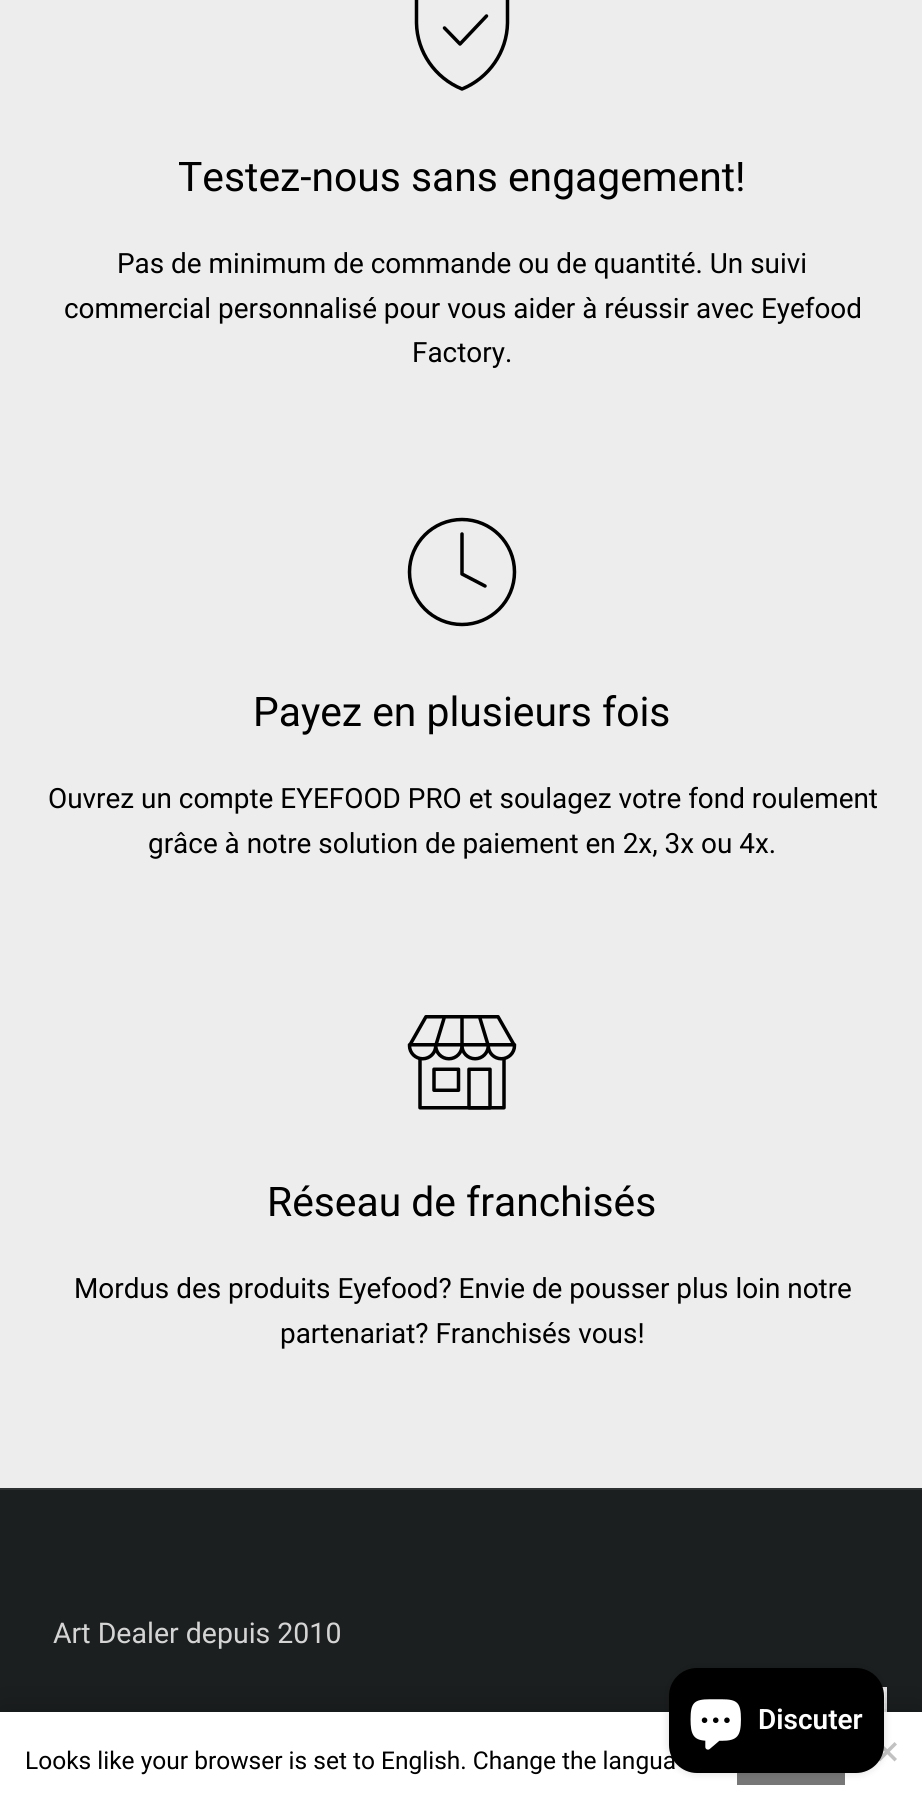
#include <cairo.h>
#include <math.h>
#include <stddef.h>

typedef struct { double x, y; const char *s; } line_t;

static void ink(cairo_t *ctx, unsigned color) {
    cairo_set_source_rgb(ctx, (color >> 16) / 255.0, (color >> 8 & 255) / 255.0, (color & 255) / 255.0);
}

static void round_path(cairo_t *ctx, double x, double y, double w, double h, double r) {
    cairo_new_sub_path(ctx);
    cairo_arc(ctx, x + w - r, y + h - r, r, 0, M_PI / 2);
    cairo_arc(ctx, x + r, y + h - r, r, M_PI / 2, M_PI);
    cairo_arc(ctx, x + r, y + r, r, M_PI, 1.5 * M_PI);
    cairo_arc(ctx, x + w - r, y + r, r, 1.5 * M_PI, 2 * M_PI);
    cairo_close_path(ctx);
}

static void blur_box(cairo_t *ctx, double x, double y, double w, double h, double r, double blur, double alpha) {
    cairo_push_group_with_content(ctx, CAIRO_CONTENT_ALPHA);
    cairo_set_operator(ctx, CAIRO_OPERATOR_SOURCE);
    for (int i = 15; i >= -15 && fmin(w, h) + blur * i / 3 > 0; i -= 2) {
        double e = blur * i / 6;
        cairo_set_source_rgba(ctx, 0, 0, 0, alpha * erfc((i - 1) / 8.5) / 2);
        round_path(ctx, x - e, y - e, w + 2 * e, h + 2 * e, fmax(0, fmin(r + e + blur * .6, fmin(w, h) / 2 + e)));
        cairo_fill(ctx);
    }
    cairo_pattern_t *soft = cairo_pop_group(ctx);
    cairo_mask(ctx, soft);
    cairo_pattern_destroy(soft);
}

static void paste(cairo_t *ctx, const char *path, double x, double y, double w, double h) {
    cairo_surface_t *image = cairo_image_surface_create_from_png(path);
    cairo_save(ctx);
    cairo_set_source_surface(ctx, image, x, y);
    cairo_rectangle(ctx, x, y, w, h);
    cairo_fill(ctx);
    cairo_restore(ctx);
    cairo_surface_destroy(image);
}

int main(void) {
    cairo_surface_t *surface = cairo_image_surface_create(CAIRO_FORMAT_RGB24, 922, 1808);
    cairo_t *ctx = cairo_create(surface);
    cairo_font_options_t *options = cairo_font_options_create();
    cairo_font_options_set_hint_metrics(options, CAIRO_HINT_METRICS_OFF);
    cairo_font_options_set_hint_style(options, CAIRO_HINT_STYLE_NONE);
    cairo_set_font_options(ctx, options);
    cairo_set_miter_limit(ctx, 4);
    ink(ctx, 0xEDEDED);
    cairo_paint(ctx);
    cairo_new_path(ctx);
    cairo_move_to(ctx, 416.5, -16);
    cairo_line_to(ctx, 507.5, -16);
    cairo_line_to(ctx, 507.5, 23);
    cairo_curve_to(ctx, 507, 52, 489, 78, 462, 89);
    cairo_curve_to(ctx, 435, 78, 417, 52, 416.5, 23);
    cairo_close_path(ctx);
    ink(ctx, 0x000000);
    cairo_set_line_width(ctx, 3.5);
    cairo_set_line_cap(ctx, CAIRO_LINE_CAP_ROUND);
    cairo_set_line_join(ctx, CAIRO_LINE_JOIN_ROUND);
    cairo_stroke(ctx);
    cairo_new_path(ctx);
    cairo_move_to(ctx, 444.5, 28);
    cairo_line_to(ctx, 460, 44);
    cairo_line_to(ctx, 486.5, 16);
    cairo_stroke(ctx);
    cairo_select_font_face(ctx, "Roboto", CAIRO_FONT_SLANT_NORMAL, CAIRO_FONT_WEIGHT_NORMAL);
    cairo_set_font_size(ctx, 40.8);
    cairo_move_to(ctx, 178, 191);
    cairo_show_text(ctx, "Testez-nous sans engagement!");
    cairo_set_font_size(ctx, 27.9);
    {
        static const line_t items[] = {
            {117, 273, "Pas de minimum de commande ou de quantité. Un suivi"},
            {64, 318, "commercial personnalisé pour vous aider à réussir avec Eyefood"},
            {412, 362, "Factory."},
        };
        for (size_t i = 0; i < sizeof items / sizeof *items; i++) {
            cairo_move_to(ctx, items[i].x, items[i].y);
            cairo_show_text(ctx, items[i].s);
        }
    }
    cairo_new_path(ctx);
    cairo_arc(ctx, 462, 572, 52.5, 0, 2 * M_PI);
    cairo_set_line_cap(ctx, CAIRO_LINE_CAP_BUTT);
    cairo_set_line_join(ctx, CAIRO_LINE_JOIN_MITER);
    cairo_stroke(ctx);
    cairo_new_path(ctx);
    cairo_move_to(ctx, 462, 534);
    cairo_line_to(ctx, 462, 574);
    cairo_line_to(ctx, 485, 586);
    cairo_set_line_cap(ctx, CAIRO_LINE_CAP_ROUND);
    cairo_set_line_join(ctx, CAIRO_LINE_JOIN_ROUND);
    cairo_stroke(ctx);
    cairo_set_font_size(ctx, 40.8);
    cairo_move_to(ctx, 253, 726);
    cairo_show_text(ctx, "Payez en plusieurs fois");
    cairo_set_font_size(ctx, 27.9);
    cairo_move_to(ctx, 48, 808);
    cairo_show_text(ctx, "Ouvrez un compte EYEFOOD PRO et soulagez votre fond roulement");
    cairo_move_to(ctx, 148, 853);
    cairo_show_text(ctx, "grâce à notre solution de paiement en 2x, 3x ou 4x.");
    paste(ctx, "media/1.png", 407, 1015, 110, 95);
    cairo_set_font_size(ctx, 40.8);
    cairo_move_to(ctx, 267, 1216);
    cairo_show_text(ctx, "Réseau de franchisés");
    cairo_set_font_size(ctx, 27.9);
    cairo_move_to(ctx, 74, 1298);
    cairo_show_text(ctx, "Mordus des produits Eyefood? Envie de pousser plus loin notre");
    cairo_move_to(ctx, 280, 1343);
    cairo_show_text(ctx, "partenariat? Franchisés vous!");
    ink(ctx, 0x1C1F20);
    cairo_rectangle(ctx, 0, 1490, 922, 222);
    cairo_fill(ctx);
    ink(ctx, 0x2E3132);
    cairo_rectangle(ctx, 0, 1488, 922, 2);
    cairo_fill(ctx);
    cairo_set_font_size(ctx, 28.5);
    ink(ctx, 0xD4D4D4);
    cairo_move_to(ctx, 53, 1643);
    cairo_show_text(ctx, "Art Dealer depuis 2010");
    ink(ctx, 0xFFFFFF);
    cairo_rectangle(ctx, 883, 1689, 2, 23);
    cairo_fill(ctx);
    cairo_rectangle(ctx, 801, 1688, 85, 86);
    ink(ctx, 0xEBEBEB);
    cairo_set_line_width(ctx, 2);
    cairo_set_line_cap(ctx, CAIRO_LINE_CAP_BUTT);
    cairo_set_line_join(ctx, CAIRO_LINE_JOIN_MITER);
    cairo_stroke(ctx);
    ink(ctx, 0x000000);
    blur_box(ctx, 0, 1712, 922, 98, 0, 17.5, 0.25);
    ink(ctx, 0xFFFFFF);
    cairo_rectangle(ctx, 0, 1712, 922, 96);
    cairo_fill(ctx);
    ink(ctx, 0xC2C2C2);
    cairo_new_path(ctx);
    cairo_move_to(ctx, 894.5, 1742);
    cairo_line_to(ctx, 897, 1744.5);
    cairo_line_to(ctx, 880, 1761.5);
    cairo_line_to(ctx, 877.5, 1759);
    cairo_close_path(ctx);
    cairo_fill(ctx);
    cairo_new_path(ctx);
    cairo_move_to(ctx, 877.5, 1744.5);
    cairo_line_to(ctx, 880, 1742);
    cairo_line_to(ctx, 897, 1759);
    cairo_line_to(ctx, 894.5, 1761.5);
    cairo_close_path(ctx);
    cairo_fill(ctx);
    ink(ctx, 0x787777);
    cairo_rectangle(ctx, 737, 1773, 108, 12);
    cairo_fill(ctx);
    ink(ctx, 0x000000);
    blur_box(ctx, 669, 1668, 215, 105, 28, 4.5, 0.15);
    ink(ctx, 0x000000);
    round_path(ctx, 669, 1668, 215, 105, 28);
    cairo_fill(ctx);
    paste(ctx, "media/2.png", 690, 1699, 51, 51);
    cairo_select_font_face(ctx, "Roboto SemiBold", CAIRO_FONT_SLANT_NORMAL, CAIRO_FONT_WEIGHT_NORMAL);
    cairo_set_font_size(ctx, 28);
    ink(ctx, 0xFFFFFF);
    cairo_move_to(ctx, 758, 1729);
    cairo_show_text(ctx, "Discuter");
    cairo_select_font_face(ctx, "Roboto", CAIRO_FONT_SLANT_NORMAL, CAIRO_FONT_WEIGHT_NORMAL);
    cairo_set_font_size(ctx, 24.5);
    ink(ctx, 0x000000);
    cairo_move_to(ctx, 25, 1769);
    cairo_show_text(ctx, "Looks like your browser is set to English. Change the langua");
    cairo_surface_write_to_png(surface, "image.png");
    cairo_font_options_destroy(options);
    cairo_destroy(ctx);
    cairo_surface_destroy(surface);
    return 0;
}
